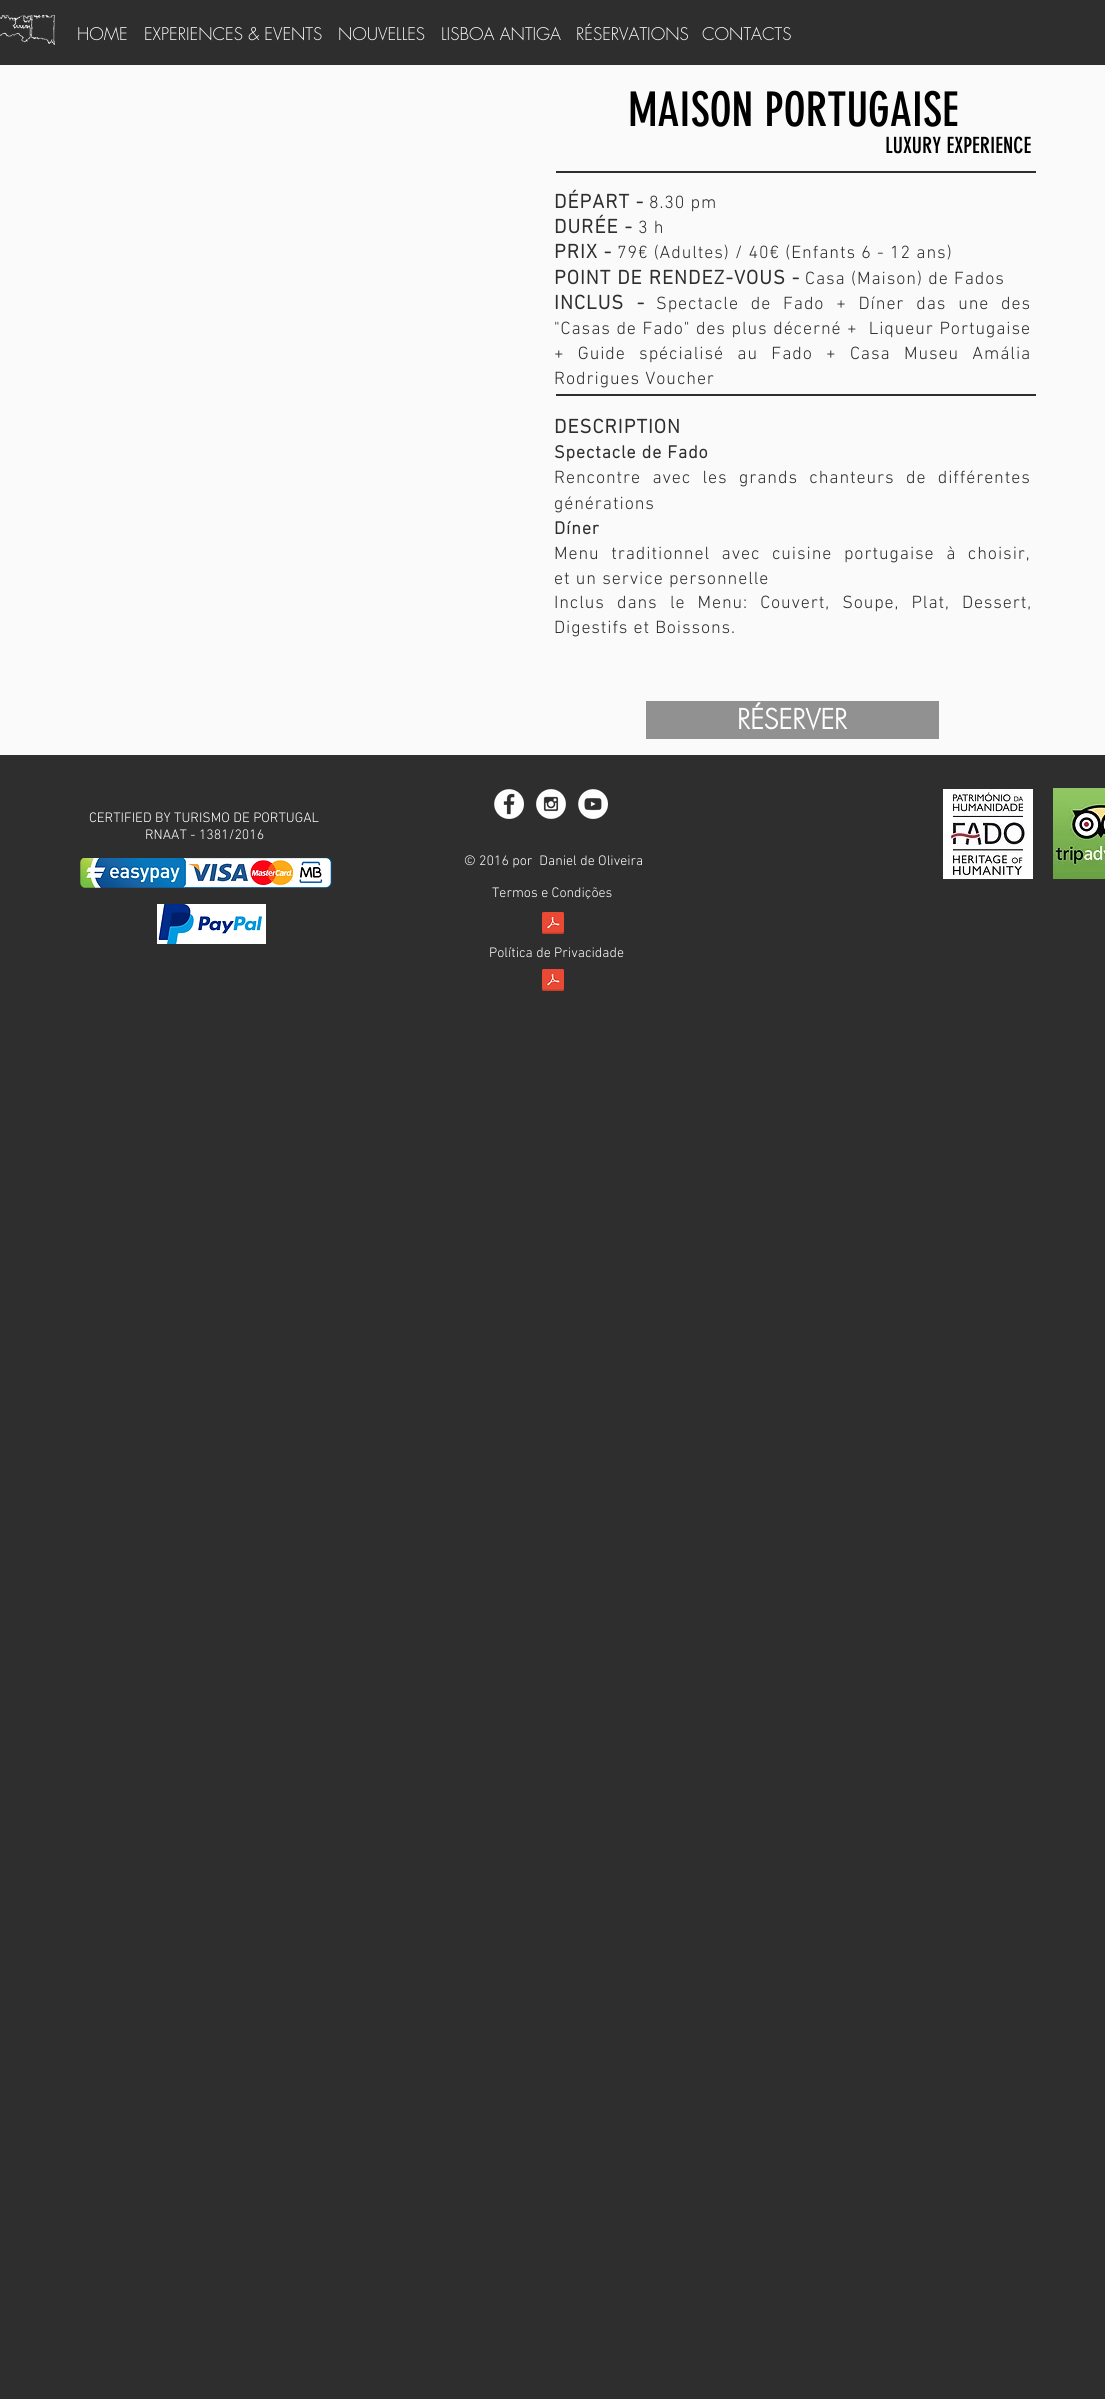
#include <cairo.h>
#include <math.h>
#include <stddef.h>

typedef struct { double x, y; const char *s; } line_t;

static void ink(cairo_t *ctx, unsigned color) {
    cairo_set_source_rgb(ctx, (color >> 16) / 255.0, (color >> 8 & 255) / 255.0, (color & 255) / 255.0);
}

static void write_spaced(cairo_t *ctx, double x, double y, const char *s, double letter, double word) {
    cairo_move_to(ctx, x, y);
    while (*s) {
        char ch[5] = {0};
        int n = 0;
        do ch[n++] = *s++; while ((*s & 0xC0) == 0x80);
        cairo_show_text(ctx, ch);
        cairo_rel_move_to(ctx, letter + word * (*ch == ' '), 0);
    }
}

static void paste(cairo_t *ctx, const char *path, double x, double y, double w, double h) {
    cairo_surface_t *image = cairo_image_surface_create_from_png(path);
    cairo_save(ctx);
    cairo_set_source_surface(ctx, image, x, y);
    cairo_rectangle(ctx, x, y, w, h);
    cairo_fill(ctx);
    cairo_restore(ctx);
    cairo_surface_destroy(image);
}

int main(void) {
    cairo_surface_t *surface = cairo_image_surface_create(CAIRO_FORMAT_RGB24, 1105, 2399);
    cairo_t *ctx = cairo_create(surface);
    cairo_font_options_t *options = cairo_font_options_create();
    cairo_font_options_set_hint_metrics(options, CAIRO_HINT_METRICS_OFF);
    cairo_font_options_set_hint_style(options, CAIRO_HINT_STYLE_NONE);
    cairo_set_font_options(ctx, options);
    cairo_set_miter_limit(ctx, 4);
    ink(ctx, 0x2F2E2E);
    cairo_paint(ctx);
    paste(ctx, "media/1.png", 0, 15, 55, 30);
    cairo_select_font_face(ctx, "futura Light", CAIRO_FONT_SLANT_NORMAL, CAIRO_FONT_WEIGHT_NORMAL);
    cairo_set_font_size(ctx, 17);
    ink(ctx, 0xFFFFFF);
    {
        static const line_t items[] = {
            {77, 40, "HOME"},
            {144, 40, "EXPERIENCES & EVENTS"},
            {338, 40, "NOUVELLES"},
            {441, 40, "LISBOA ANTIGA"},
            {576, 40, "RÉSERVATIONS"},
            {702, 40, "CONTACTS"},
        };
        for (size_t i = 0; i < sizeof items / sizeof *items; i++) {
            cairo_move_to(ctx, items[i].x, items[i].y);
            cairo_show_text(ctx, items[i].s);
        }
    }
    ink(ctx, 0xFAFAFA);
    cairo_rectangle(ctx, 0, 65, 1105, 690);
    cairo_fill(ctx);
    cairo_select_font_face(ctx, "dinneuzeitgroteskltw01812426", CAIRO_FONT_SLANT_NORMAL, CAIRO_FONT_WEIGHT_NORMAL);
    cairo_set_font_size(ctx, 47);
    ink(ctx, 0x000000);
    cairo_move_to(ctx, 628, 126);
    cairo_show_text(ctx, "MAISON PORTUGAISE");
    cairo_set_font_size(ctx, 22);
    cairo_move_to(ctx, 885, 153);
    cairo_show_text(ctx, "LUXURY EXPERIENCE");
    ink(ctx, 0x2F2E2E);
    cairo_rectangle(ctx, 556, 171, 480, 2);
    cairo_fill(ctx);
    cairo_select_font_face(ctx, "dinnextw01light", CAIRO_FONT_SLANT_NORMAL, CAIRO_FONT_WEIGHT_BOLD);
    cairo_set_font_size(ctx, 20);
    write_spaced(ctx, 554, 208, "DÉPART -", 1, 0);
    cairo_select_font_face(ctx, "dinnextw01light Light", CAIRO_FONT_SLANT_NORMAL, CAIRO_FONT_WEIGHT_NORMAL);
    cairo_set_font_size(ctx, 18);
    write_spaced(ctx, 649, 208, "8.30 pm", 0.9, 0);
    cairo_select_font_face(ctx, "dinnextw01light", CAIRO_FONT_SLANT_NORMAL, CAIRO_FONT_WEIGHT_BOLD);
    cairo_set_font_size(ctx, 20);
    write_spaced(ctx, 554, 233, "DURÉE -", 1, 0);
    cairo_select_font_face(ctx, "dinnextw01light Light", CAIRO_FONT_SLANT_NORMAL, CAIRO_FONT_WEIGHT_NORMAL);
    cairo_set_font_size(ctx, 18);
    write_spaced(ctx, 638, 233, "3 h", 0.9, 0);
    cairo_select_font_face(ctx, "dinnextw01light", CAIRO_FONT_SLANT_NORMAL, CAIRO_FONT_WEIGHT_BOLD);
    cairo_set_font_size(ctx, 20);
    write_spaced(ctx, 554, 258, "PRIX -", 1, 0);
    cairo_select_font_face(ctx, "dinnextw01light Light", CAIRO_FONT_SLANT_NORMAL, CAIRO_FONT_WEIGHT_NORMAL);
    cairo_set_font_size(ctx, 18);
    write_spaced(ctx, 617, 258, "79€ (Adultes) / 40€ (Enfants 6 - 12 ans)", 0.9, 0);
    cairo_select_font_face(ctx, "dinnextw01light", CAIRO_FONT_SLANT_NORMAL, CAIRO_FONT_WEIGHT_BOLD);
    cairo_set_font_size(ctx, 20);
    write_spaced(ctx, 554, 284, "POINT DE RENDEZ-VOUS -", 1, 0);
    cairo_select_font_face(ctx, "dinnextw01light Light", CAIRO_FONT_SLANT_NORMAL, CAIRO_FONT_WEIGHT_NORMAL);
    cairo_set_font_size(ctx, 18);
    write_spaced(ctx, 805, 284, "Casa (Maison) de Fados", 0.9, 0);
    cairo_select_font_face(ctx, "dinnextw01light", CAIRO_FONT_SLANT_NORMAL, CAIRO_FONT_WEIGHT_BOLD);
    cairo_set_font_size(ctx, 20);
    write_spaced(ctx, 554, 309, "INCLUS -", 1, 6.5);
    cairo_select_font_face(ctx, "dinnextw01light Light", CAIRO_FONT_SLANT_NORMAL, CAIRO_FONT_WEIGHT_NORMAL);
    cairo_set_font_size(ctx, 18);
    write_spaced(ctx, 656, 309, "Spectacle de Fado + Díner das une des", 0.9, 6.5);
    write_spaced(ctx, 554, 334, "\"Casas de Fado\" des plus décerné +  Liqueur Portugaise", 0.9, 0.25);
    write_spaced(ctx, 554, 359, "+ Guide spécialisé au Fado + Casa Museu Amália", 0.9, 8);
    write_spaced(ctx, 554, 384, "Rodrigues Voucher", 0.9, 0);
    cairo_rectangle(ctx, 556, 394, 480, 2);
    cairo_fill(ctx);
    cairo_select_font_face(ctx, "dinnextw01light", CAIRO_FONT_SLANT_NORMAL, CAIRO_FONT_WEIGHT_BOLD);
    cairo_set_font_size(ctx, 20);
    write_spaced(ctx, 554, 433, "DESCRIPTION", 1, 0);
    cairo_set_font_size(ctx, 18);
    write_spaced(ctx, 554, 458, "Spectacle de Fado", 0.85, 0);
    cairo_select_font_face(ctx, "dinnextw01light Light", CAIRO_FONT_SLANT_NORMAL, CAIRO_FONT_WEIGHT_NORMAL);
    write_spaced(ctx, 554, 483, "Rencontre avec les grands chanteurs de différentes", 0.9, 6);
    write_spaced(ctx, 554, 509, "générations", 0.9, 0);
    cairo_select_font_face(ctx, "dinnextw01light", CAIRO_FONT_SLANT_NORMAL, CAIRO_FONT_WEIGHT_BOLD);
    write_spaced(ctx, 554, 534, "Díner", 0.9, 0);
    cairo_select_font_face(ctx, "dinnextw01light Light", CAIRO_FONT_SLANT_NORMAL, CAIRO_FONT_WEIGHT_NORMAL);
    write_spaced(ctx, 554, 559, "Menu traditionnel avec cuisine portugaise à choisir,", 0.9, 6.25);
    write_spaced(ctx, 554, 584, "et un service personnelle", 0.9, 0);
    write_spaced(ctx, 554, 608, "Inclus dans le Menu: Couvert, Soupe, Plat, Dessert,", 0.85, 7);
    write_spaced(ctx, 554, 633, "Digestifs et Boissons.", 0.85, 0);
    ink(ctx, 0x919191);
    cairo_rectangle(ctx, 646, 701, 293, 38);
    cairo_fill(ctx);
    cairo_select_font_face(ctx, "futura", CAIRO_FONT_SLANT_NORMAL, CAIRO_FONT_WEIGHT_BOLD);
    cairo_set_font_size(ctx, 27);
    ink(ctx, 0xFFFFFF);
    cairo_move_to(ctx, 737, 729);
    cairo_show_text(ctx, "RÉSERVER");
    cairo_select_font_face(ctx, "dinnextw01light Light", CAIRO_FONT_SLANT_NORMAL, CAIRO_FONT_WEIGHT_NORMAL);
    cairo_set_font_size(ctx, 14);
    cairo_move_to(ctx, 89, 822);
    cairo_show_text(ctx, "CERTIFIED BY TURISMO DE PORTUGAL");
    cairo_move_to(ctx, 145, 839);
    cairo_show_text(ctx, "RNAAT - 1381/2016");
    paste(ctx, "media/2.png", 494, 789, 30, 30);
    paste(ctx, "media/3.png", 536, 789, 30, 30);
    paste(ctx, "media/4.png", 578, 789, 30, 30);
    paste(ctx, "media/5.png", 943, 789, 90, 90);
    paste(ctx, "media/6.png", 1053, 788, 52, 91);
    paste(ctx, "media/7.png", 80, 858, 252, 30);
    cairo_move_to(ctx, 464, 865);
    cairo_show_text(ctx, "© 2016 por  Daniel de Oliveira");
    cairo_move_to(ctx, 492, 897);
    cairo_show_text(ctx, "Termos e Condições");
    paste(ctx, "media/8.png", 157, 904, 109, 40);
    paste(ctx, "media/9.png", 542, 912, 22, 22);
    cairo_move_to(ctx, 489, 957);
    cairo_show_text(ctx, "Política de Privacidade");
    paste(ctx, "media/9.png", 542, 969, 22, 22);
    cairo_surface_write_to_png(surface, "image.png");
    cairo_font_options_destroy(options);
    cairo_destroy(ctx);
    cairo_surface_destroy(surface);
    return 0;
}
